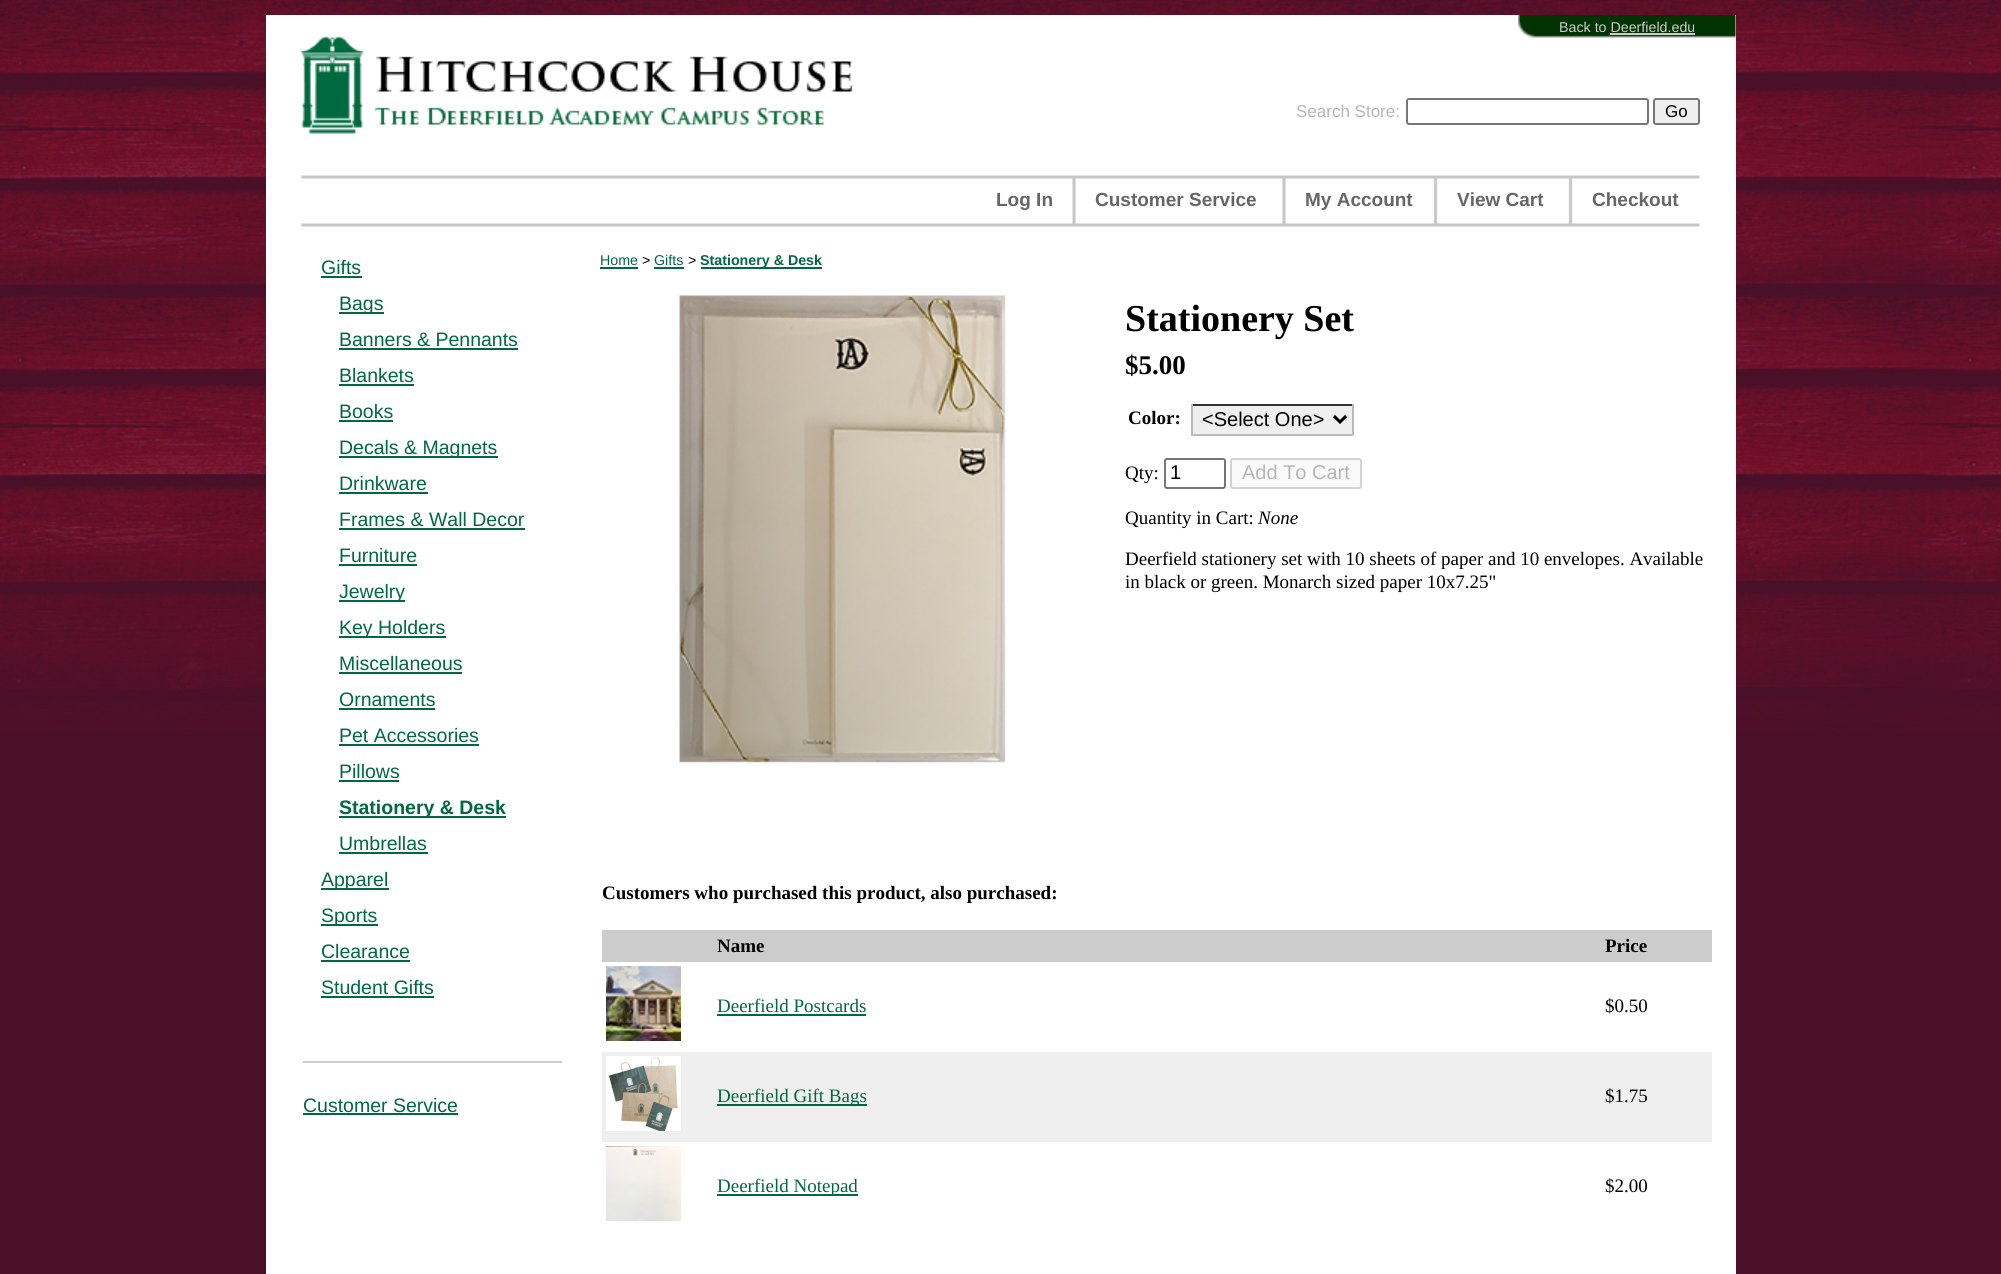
#include <cairo.h>
#include <math.h>
#include <stddef.h>

typedef struct { double x, y; const char *s; } line_t;
typedef struct { double x, y, w, h; unsigned color; } box_t;

static void ink(cairo_t *ctx, unsigned color) {
    cairo_set_source_rgb(ctx, (color >> 16) / 255.0, (color >> 8 & 255) / 255.0, (color & 255) / 255.0);
}

static void round_path(cairo_t *ctx, double x, double y, double w, double h, double r) {
    cairo_new_sub_path(ctx);
    cairo_arc(ctx, x + w - r, y + h - r, r, 0, M_PI / 2);
    cairo_arc(ctx, x + r, y + h - r, r, M_PI / 2, M_PI);
    cairo_arc(ctx, x + r, y + r, r, M_PI, 1.5 * M_PI);
    cairo_arc(ctx, x + w - r, y + r, r, 1.5 * M_PI, 2 * M_PI);
    cairo_close_path(ctx);
}

static void paste(cairo_t *ctx, const char *path, double x, double y, double w, double h) {
    cairo_surface_t *image = cairo_image_surface_create_from_png(path);
    cairo_save(ctx);
    cairo_set_source_surface(ctx, image, x, y);
    cairo_rectangle(ctx, x, y, w, h);
    cairo_fill(ctx);
    cairo_restore(ctx);
    cairo_surface_destroy(image);
}

int main(void) {
    cairo_surface_t *surface = cairo_image_surface_create(CAIRO_FORMAT_RGB24, 2001, 1274);
    cairo_t *ctx = cairo_create(surface);
    cairo_font_options_t *options = cairo_font_options_create();
    cairo_font_options_set_hint_metrics(options, CAIRO_HINT_METRICS_OFF);
    cairo_font_options_set_hint_style(options, CAIRO_HINT_STYLE_NONE);
    cairo_set_font_options(ctx, options);
    cairo_set_miter_limit(ctx, 4);
    ink(ctx, 0x491028);
    cairo_paint(ctx);
    paste(ctx, "media/1.png", 0, 0, 2001, 733);
    ink(ctx, 0xFFFFFF);
    cairo_rectangle(ctx, 266, 15, 1470, 1259);
    cairo_fill(ctx);
    paste(ctx, "media/2.png", 1518, 15, 218, 23);
    cairo_select_font_face(ctx, "Liberation Sans", CAIRO_FONT_SLANT_NORMAL, CAIRO_FONT_WEIGHT_NORMAL);
    cairo_set_font_size(ctx, 14.25);
    ink(ctx, 0xCCCCCC);
    cairo_move_to(ctx, 1559, 32);
    cairo_show_text(ctx, "Back to Deerfield.edu");
    cairo_rectangle(ctx, 1610, 33, 85, 2);
    cairo_fill(ctx);
    paste(ctx, "media/3.png", 301, 36, 552, 98);
    cairo_set_font_size(ctx, 17);
    ink(ctx, 0xB6B6B6);
    cairo_move_to(ctx, 1296, 117);
    cairo_show_text(ctx, "Search Store:");
    round_path(ctx, 1407, 99, 241, 25, 2);
    ink(ctx, 0x767676);
    cairo_stroke(ctx);
    ink(ctx, 0xEFEFEF);
    round_path(ctx, 1654, 99, 45, 25, 2);
    cairo_fill_preserve(ctx);
    ink(ctx, 0x767676);
    cairo_stroke(ctx);
    ink(ctx, 0x000000);
    cairo_move_to(ctx, 1665, 117);
    cairo_show_text(ctx, "Go");
    paste(ctx, "media/4.png", 301, 175, 1399, 52);
    cairo_select_font_face(ctx, "Liberation Sans", CAIRO_FONT_SLANT_NORMAL, CAIRO_FONT_WEIGHT_BOLD);
    cairo_set_font_size(ctx, 19);
    ink(ctx, 0x666666);
    {
        static const line_t items[] = {
            {996, 206, "Log In"},
            {1095, 206, "Customer Service"},
            {1305, 206, "My Account"},
            {1457, 206, "View Cart"},
            {1592, 206, "Checkout"},
        };
        for (size_t i = 0; i < sizeof items / sizeof *items; i++) {
            cairo_move_to(ctx, items[i].x, items[i].y);
            cairo_show_text(ctx, items[i].s);
        }
    }
    cairo_select_font_face(ctx, "Liberation Sans", CAIRO_FONT_SLANT_NORMAL, CAIRO_FONT_WEIGHT_NORMAL);
    cairo_set_font_size(ctx, 19.5);
    ink(ctx, 0x006940);
    cairo_move_to(ctx, 321, 274);
    cairo_show_text(ctx, "Gifts");
    cairo_rectangle(ctx, 321, 276, 41, 2);
    cairo_fill(ctx);
    cairo_rectangle(ctx, 339, 312, 45, 2);
    cairo_fill(ctx);
    cairo_move_to(ctx, 339, 310);
    cairo_show_text(ctx, "Bags");
    cairo_move_to(ctx, 339, 346);
    cairo_show_text(ctx, "Banners & Pennants");
    cairo_rectangle(ctx, 339, 348, 179, 2);
    cairo_fill(ctx);
    cairo_move_to(ctx, 339, 382);
    cairo_show_text(ctx, "Blankets");
    cairo_rectangle(ctx, 339, 384, 75, 2);
    cairo_fill(ctx);
    cairo_move_to(ctx, 339, 418);
    cairo_show_text(ctx, "Books");
    cairo_rectangle(ctx, 339, 420, 54, 2);
    cairo_fill(ctx);
    cairo_rectangle(ctx, 339, 456, 159, 2);
    cairo_fill(ctx);
    cairo_move_to(ctx, 339, 454);
    cairo_show_text(ctx, "Decals & Magnets");
    cairo_move_to(ctx, 339, 490);
    cairo_show_text(ctx, "Drinkware");
    cairo_rectangle(ctx, 339, 492, 89, 2);
    cairo_fill(ctx);
    cairo_move_to(ctx, 339, 526);
    cairo_show_text(ctx, "Frames & Wall Decor");
    cairo_rectangle(ctx, 339, 528, 186, 2);
    cairo_fill(ctx);
    cairo_move_to(ctx, 339, 562);
    cairo_show_text(ctx, "Furniture");
    cairo_rectangle(ctx, 339, 564, 78, 2);
    cairo_fill(ctx);
    cairo_rectangle(ctx, 339, 600, 66, 2);
    cairo_fill(ctx);
    cairo_move_to(ctx, 339, 598);
    cairo_show_text(ctx, "Jewelry");
    cairo_rectangle(ctx, 339, 636, 107, 2);
    cairo_fill(ctx);
    cairo_move_to(ctx, 339, 634);
    cairo_show_text(ctx, "Key Holders");
    cairo_move_to(ctx, 339, 670);
    cairo_show_text(ctx, "Miscellaneous");
    cairo_rectangle(ctx, 339, 672, 123, 2);
    cairo_fill(ctx);
    cairo_move_to(ctx, 339, 706);
    cairo_show_text(ctx, "Ornaments");
    cairo_rectangle(ctx, 339, 708, 96, 2);
    cairo_fill(ctx);
    cairo_move_to(ctx, 339, 742);
    cairo_show_text(ctx, "Pet Accessories");
    cairo_rectangle(ctx, 339, 744, 140, 2);
    cairo_fill(ctx);
    cairo_move_to(ctx, 339, 778);
    cairo_show_text(ctx, "Pillows");
    cairo_rectangle(ctx, 339, 780, 60, 2);
    cairo_fill(ctx);
    cairo_rectangle(ctx, 339, 816, 167, 2);
    cairo_fill(ctx);
    cairo_select_font_face(ctx, "Liberation Sans", CAIRO_FONT_SLANT_NORMAL, CAIRO_FONT_WEIGHT_BOLD);
    cairo_move_to(ctx, 339, 814);
    cairo_show_text(ctx, "Stationery & Desk");
    cairo_select_font_face(ctx, "Liberation Sans", CAIRO_FONT_SLANT_NORMAL, CAIRO_FONT_WEIGHT_NORMAL);
    cairo_move_to(ctx, 339, 850);
    cairo_show_text(ctx, "Umbrellas");
    cairo_rectangle(ctx, 339, 852, 89, 2);
    cairo_fill(ctx);
    cairo_rectangle(ctx, 321, 888, 68, 2);
    cairo_fill(ctx);
    cairo_move_to(ctx, 321, 886);
    cairo_show_text(ctx, "Apparel");
    cairo_rectangle(ctx, 321, 924, 57, 2);
    cairo_fill(ctx);
    cairo_move_to(ctx, 321, 922);
    cairo_show_text(ctx, "Sports");
    cairo_move_to(ctx, 321, 958);
    cairo_show_text(ctx, "Clearance");
    cairo_rectangle(ctx, 321, 960, 89, 2);
    cairo_fill(ctx);
    cairo_move_to(ctx, 321, 994);
    cairo_show_text(ctx, "Student Gifts");
    cairo_rectangle(ctx, 321, 996, 113, 2);
    cairo_fill(ctx);
    ink(ctx, 0xCCCCCC);
    cairo_rectangle(ctx, 303, 1061, 259, 2);
    cairo_fill(ctx);
    ink(ctx, 0x006940);
    cairo_move_to(ctx, 303, 1112);
    cairo_show_text(ctx, "Customer Service");
    cairo_rectangle(ctx, 303, 1113, 155, 2);
    cairo_fill(ctx);
    cairo_set_font_size(ctx, 14.25);
    cairo_move_to(ctx, 600, 265);
    cairo_show_text(ctx, "Home");
    cairo_rectangle(ctx, 600, 267, 38, 2);
    cairo_fill(ctx);
    ink(ctx, 0x000000);
    cairo_move_to(ctx, 642, 265);
    cairo_show_text(ctx, ">");
    ink(ctx, 0x006940);
    cairo_move_to(ctx, 654, 265);
    cairo_show_text(ctx, "Gifts");
    cairo_rectangle(ctx, 654, 267, 30, 2);
    cairo_fill(ctx);
    ink(ctx, 0x000000);
    cairo_move_to(ctx, 688, 265);
    cairo_show_text(ctx, ">");
    ink(ctx, 0x006940);
    cairo_rectangle(ctx, 701, 267, 121, 2);
    cairo_fill(ctx);
    cairo_select_font_face(ctx, "Liberation Sans", CAIRO_FONT_SLANT_NORMAL, CAIRO_FONT_WEIGHT_BOLD);
    cairo_move_to(ctx, 700, 265);
    cairo_show_text(ctx, "Stationery & Desk");
    paste(ctx, "media/5.png", 679, 295, 329, 468);
    cairo_select_font_face(ctx, "Liberation Serif", CAIRO_FONT_SLANT_NORMAL, CAIRO_FONT_WEIGHT_BOLD);
    cairo_set_font_size(ctx, 38);
    ink(ctx, 0x000000);
    cairo_move_to(ctx, 1125, 331);
    cairo_show_text(ctx, "Stationery Set");
    cairo_set_font_size(ctx, 27);
    cairo_move_to(ctx, 1125, 374);
    cairo_show_text(ctx, "$5.00");
    cairo_set_font_size(ctx, 19);
    cairo_move_to(ctx, 1128, 424);
    cairo_show_text(ctx, "Color:");
    {
        static const box_t items[] = {
            {1193, 406, 159, 28, 0xEFEFEF},
            {1191, 404, 162, 2, 0x333333},
            {1352, 404, 2, 31, 0xBBBBBB},
            {1191, 434, 162, 2, 0xBBBBBB},
            {1191, 404, 2, 31, 0xBBBBBB},
        };
        for (size_t i = 0; i < sizeof items / sizeof *items; i++) {
            ink(ctx, items[i].color);
            cairo_rectangle(ctx, items[i].x, items[i].y, items[i].w, items[i].h);
            cairo_fill(ctx);
        }
    }
    cairo_new_path(ctx);
    cairo_move_to(ctx, 1334, 416);
    cairo_line_to(ctx, 1340, 422);
    cairo_line_to(ctx, 1346, 416);
    ink(ctx, 0x000000);
    cairo_set_line_width(ctx, 3);
    cairo_stroke(ctx);
    cairo_select_font_face(ctx, "Liberation Sans", CAIRO_FONT_SLANT_NORMAL, CAIRO_FONT_WEIGHT_NORMAL);
    cairo_set_font_size(ctx, 20);
    cairo_move_to(ctx, 1202, 426);
    cairo_show_text(ctx, "<Select One>");
    cairo_select_font_face(ctx, "Liberation Serif", CAIRO_FONT_SLANT_NORMAL, CAIRO_FONT_WEIGHT_NORMAL);
    cairo_set_font_size(ctx, 19);
    cairo_move_to(ctx, 1125, 479);
    cairo_show_text(ctx, "Qty:");
    round_path(ctx, 1165, 459, 60, 29, 2);
    ink(ctx, 0x767676);
    cairo_set_line_width(ctx, 2);
    cairo_stroke(ctx);
    cairo_select_font_face(ctx, "Liberation Sans", CAIRO_FONT_SLANT_NORMAL, CAIRO_FONT_WEIGHT_NORMAL);
    cairo_set_font_size(ctx, 20);
    ink(ctx, 0x000000);
    cairo_move_to(ctx, 1170, 479);
    cairo_show_text(ctx, "1");
    ink(ctx, 0xFAFAFA);
    round_path(ctx, 1231, 459, 130, 29, 2);
    cairo_fill_preserve(ctx);
    ink(ctx, 0xD2D2D2);
    cairo_stroke(ctx);
    ink(ctx, 0xB6B6B6);
    cairo_move_to(ctx, 1242, 479);
    cairo_show_text(ctx, "Add To Cart");
    cairo_select_font_face(ctx, "Liberation Serif", CAIRO_FONT_SLANT_NORMAL, CAIRO_FONT_WEIGHT_NORMAL);
    cairo_set_font_size(ctx, 19);
    ink(ctx, 0x000000);
    cairo_move_to(ctx, 1125, 524);
    cairo_show_text(ctx, "Quantity in Cart:");
    cairo_select_font_face(ctx, "Liberation Serif", CAIRO_FONT_SLANT_ITALIC, CAIRO_FONT_WEIGHT_NORMAL);
    cairo_move_to(ctx, 1258, 524);
    cairo_show_text(ctx, "None");
    cairo_select_font_face(ctx, "Liberation Serif", CAIRO_FONT_SLANT_NORMAL, CAIRO_FONT_WEIGHT_NORMAL);
    cairo_move_to(ctx, 1125, 565);
    cairo_show_text(ctx, "Deerfield stationery set with 10 sheets of paper and 10 envelopes. Available");
    cairo_move_to(ctx, 1125, 588);
    cairo_show_text(ctx, "in black or green. Monarch sized paper 10x7.25\"");
    cairo_select_font_face(ctx, "Liberation Serif", CAIRO_FONT_SLANT_NORMAL, CAIRO_FONT_WEIGHT_BOLD);
    cairo_move_to(ctx, 602, 899);
    cairo_show_text(ctx, "Customers who purchased this product, also purchased:");
    ink(ctx, 0xCCCCCC);
    cairo_rectangle(ctx, 602, 930, 1110, 32);
    cairo_fill(ctx);
    ink(ctx, 0x000000);
    cairo_move_to(ctx, 717, 952);
    cairo_show_text(ctx, "Name");
    cairo_move_to(ctx, 1605, 952);
    cairo_show_text(ctx, "Price");
    paste(ctx, "media/6.png", 606, 966, 75, 75);
    cairo_select_font_face(ctx, "Liberation Serif", CAIRO_FONT_SLANT_NORMAL, CAIRO_FONT_WEIGHT_NORMAL);
    ink(ctx, 0x006940);
    cairo_move_to(ctx, 717, 1012);
    cairo_show_text(ctx, "Deerfield Postcards");
    cairo_rectangle(ctx, 717, 1014, 149, 2);
    cairo_fill(ctx);
    ink(ctx, 0x000000);
    cairo_move_to(ctx, 1605, 1012);
    cairo_show_text(ctx, "$0.50");
    ink(ctx, 0xEFEFEF);
    cairo_rectangle(ctx, 602, 1052, 1110, 90);
    cairo_fill(ctx);
    paste(ctx, "media/7.png", 606, 1056, 75, 75);
    ink(ctx, 0x006940);
    cairo_rectangle(ctx, 717, 1104, 150, 2);
    cairo_fill(ctx);
    cairo_move_to(ctx, 717, 1102);
    cairo_show_text(ctx, "Deerfield Gift Bags");
    ink(ctx, 0x000000);
    cairo_move_to(ctx, 1605, 1102);
    cairo_show_text(ctx, "$1.75");
    paste(ctx, "media/8.png", 606, 1146, 75, 75);
    ink(ctx, 0x006940);
    cairo_rectangle(ctx, 717, 1194, 141, 2);
    cairo_fill(ctx);
    cairo_move_to(ctx, 717, 1192);
    cairo_show_text(ctx, "Deerfield Notepad");
    ink(ctx, 0x000000);
    cairo_move_to(ctx, 1605, 1192);
    cairo_show_text(ctx, "$2.00");
    cairo_surface_write_to_png(surface, "image.png");
    cairo_font_options_destroy(options);
    cairo_destroy(ctx);
    cairo_surface_destroy(surface);
    return 0;
}
